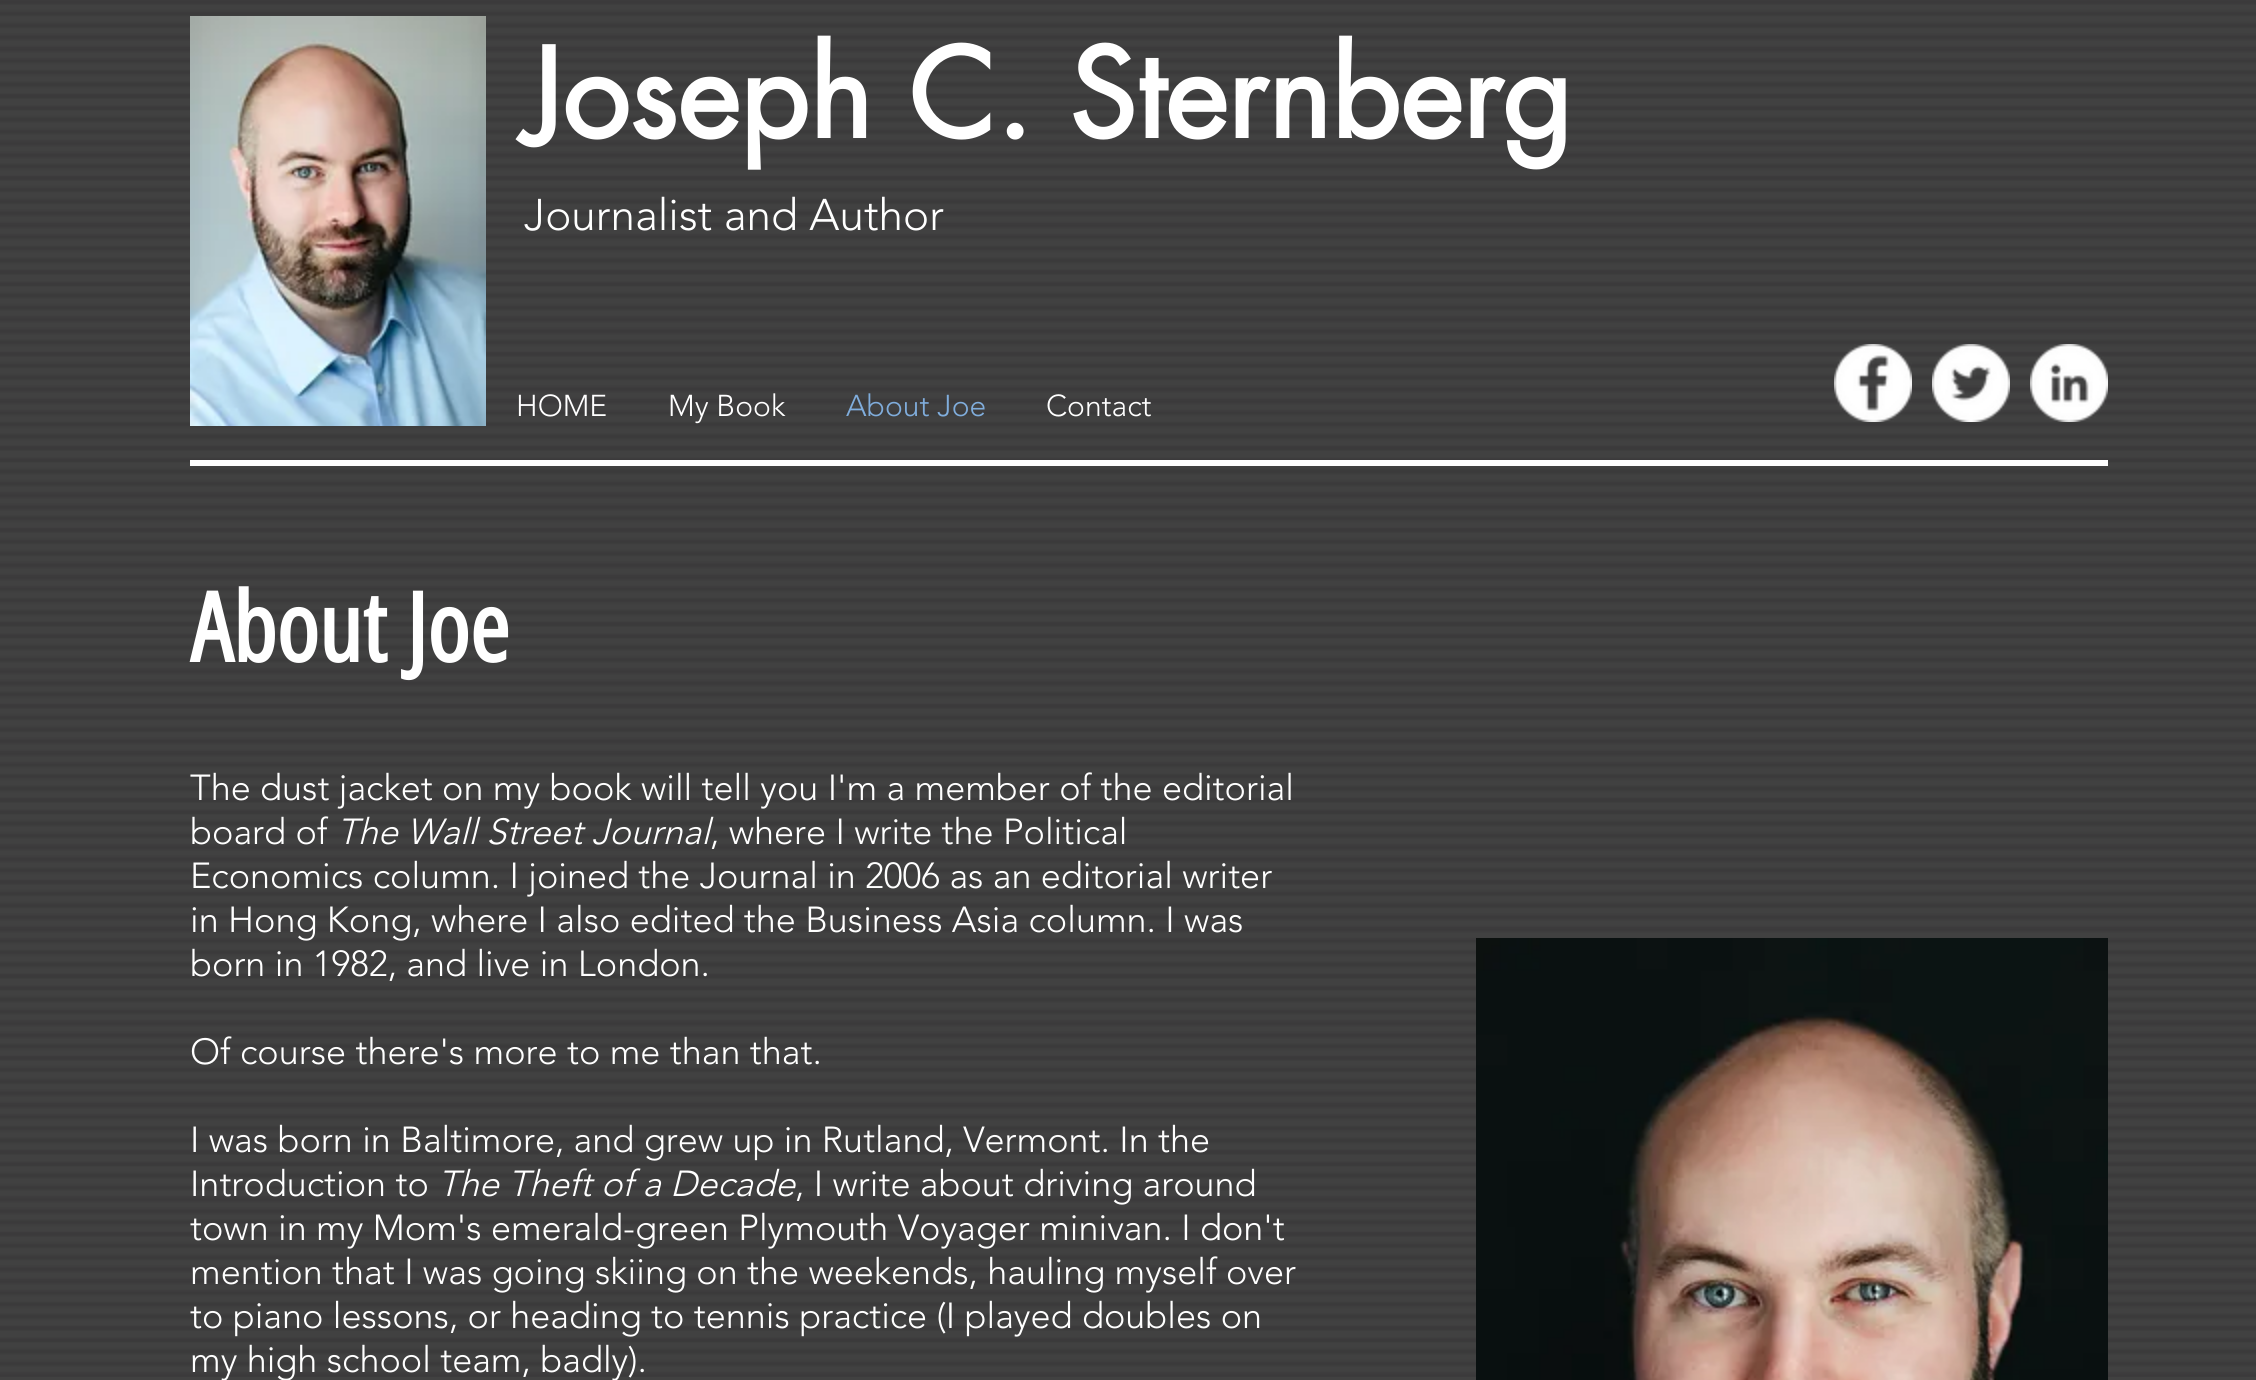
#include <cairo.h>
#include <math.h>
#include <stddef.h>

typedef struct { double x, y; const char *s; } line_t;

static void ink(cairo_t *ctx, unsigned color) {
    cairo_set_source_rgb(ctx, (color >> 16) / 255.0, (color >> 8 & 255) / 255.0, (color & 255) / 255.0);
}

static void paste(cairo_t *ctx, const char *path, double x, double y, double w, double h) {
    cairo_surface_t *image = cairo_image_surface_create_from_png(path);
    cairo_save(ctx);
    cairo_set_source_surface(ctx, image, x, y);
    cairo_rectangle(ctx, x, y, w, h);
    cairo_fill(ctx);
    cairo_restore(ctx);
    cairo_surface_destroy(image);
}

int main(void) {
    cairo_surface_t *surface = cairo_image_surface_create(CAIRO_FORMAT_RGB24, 2256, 1380);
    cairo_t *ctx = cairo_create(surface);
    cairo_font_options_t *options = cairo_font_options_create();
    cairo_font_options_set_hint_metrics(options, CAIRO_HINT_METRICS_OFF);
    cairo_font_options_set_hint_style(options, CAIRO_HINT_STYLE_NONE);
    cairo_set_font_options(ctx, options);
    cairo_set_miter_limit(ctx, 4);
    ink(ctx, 0x414141);
    cairo_paint(ctx);
    paste(ctx, "media/1.png", 0, 0, 2256, 1377);
    paste(ctx, "media/2.png", 190, 16, 296, 410);
    cairo_select_font_face(ctx, "futura", CAIRO_FONT_SLANT_NORMAL, CAIRO_FONT_WEIGHT_BOLD);
    cairo_set_font_size(ctx, 120);
    ink(ctx, 0xFFFFFF);
    cairo_move_to(ctx, 524, 138);
    cairo_show_text(ctx, "Joseph C. Sternberg");
    cairo_select_font_face(ctx, "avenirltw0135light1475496 Light", CAIRO_FONT_SLANT_NORMAL, CAIRO_FONT_WEIGHT_NORMAL);
    cairo_set_font_size(ctx, 44);
    cairo_move_to(ctx, 524, 230);
    cairo_show_text(ctx, "Journalist and Author");
    cairo_set_font_size(ctx, 30);
    cairo_move_to(ctx, 516, 416);
    cairo_show_text(ctx, "HOME");
    cairo_move_to(ctx, 668, 416);
    cairo_show_text(ctx, "My Book");
    ink(ctx, 0x80ADDC);
    cairo_move_to(ctx, 846, 416);
    cairo_show_text(ctx, "About Joe");
    ink(ctx, 0xFFFFFF);
    cairo_move_to(ctx, 1046, 416);
    cairo_show_text(ctx, "Contact");
    paste(ctx, "media/3.png", 1834, 344, 78, 78);
    paste(ctx, "media/4.png", 1932, 344, 78, 78);
    paste(ctx, "media/5.png", 2030, 344, 78, 78);
    cairo_rectangle(ctx, 190, 460, 1918, 6);
    cairo_fill(ctx);
    cairo_select_font_face(ctx, "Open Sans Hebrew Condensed", CAIRO_FONT_SLANT_NORMAL, CAIRO_FONT_WEIGHT_BOLD);
    cairo_set_font_size(ctx, 96);
    cairo_move_to(ctx, 190, 662);
    cairo_show_text(ctx, "About Joe");
    cairo_select_font_face(ctx, "avenirltw0135light1475496 Light", CAIRO_FONT_SLANT_NORMAL, CAIRO_FONT_WEIGHT_NORMAL);
    cairo_set_font_size(ctx, 36);
    cairo_move_to(ctx, 190, 800);
    cairo_show_text(ctx, "The dust jacket on my book will tell you I'm a member of the editorial");
    cairo_move_to(ctx, 190, 844);
    cairo_show_text(ctx, "board of");
    cairo_select_font_face(ctx, "avenirltw0135light1475496 Light", CAIRO_FONT_SLANT_ITALIC, CAIRO_FONT_WEIGHT_NORMAL);
    cairo_move_to(ctx, 337, 844);
    cairo_show_text(ctx, "The Wall Street Journal");
    cairo_select_font_face(ctx, "avenirltw0135light1475496 Light", CAIRO_FONT_SLANT_NORMAL, CAIRO_FONT_WEIGHT_NORMAL);
    {
        static const line_t items[] = {
            {710, 844, ", where I write the Political"},
            {190, 888, "Economics column. I joined the Journal in 2006 as an editorial writer"},
            {190, 932, "in Hong Kong, where I also edited the Business Asia column. I was"},
            {190, 976, "born in 1982, and live in London."},
            {190, 1064, "Of course there's more to me than that."},
            {190, 1152, "I was born in Baltimore, and grew up in Rutland, Vermont. In the"},
            {190, 1196, "Introduction to"},
        };
        for (size_t i = 0; i < sizeof items / sizeof *items; i++) {
            cairo_move_to(ctx, items[i].x, items[i].y);
            cairo_show_text(ctx, items[i].s);
        }
    }
    cairo_select_font_face(ctx, "avenirltw0135light1475496 Light", CAIRO_FONT_SLANT_ITALIC, CAIRO_FONT_WEIGHT_NORMAL);
    cairo_move_to(ctx, 438, 1196);
    cairo_show_text(ctx, "The Theft of a Decade");
    cairo_select_font_face(ctx, "avenirltw0135light1475496 Light", CAIRO_FONT_SLANT_NORMAL, CAIRO_FONT_WEIGHT_NORMAL);
    {
        static const line_t items[] = {
            {795, 1196, ", I write about driving around"},
            {190, 1240, "town in my Mom's emerald-green Plymouth Voyager minivan. I don't"},
            {190, 1284, "mention that I was going skiing on the weekends, hauling myself over"},
            {190, 1328, "to piano lessons, or heading to tennis practice (I played doubles on"},
            {190, 1372, "my high school team, badly)."},
        };
        for (size_t i = 0; i < sizeof items / sizeof *items; i++) {
            cairo_move_to(ctx, items[i].x, items[i].y);
            cairo_show_text(ctx, items[i].s);
        }
    }
    paste(ctx, "media/6.png", 1476, 938, 632, 442);
    cairo_surface_write_to_png(surface, "image.png");
    cairo_font_options_destroy(options);
    cairo_destroy(ctx);
    cairo_surface_destroy(surface);
    return 0;
}
